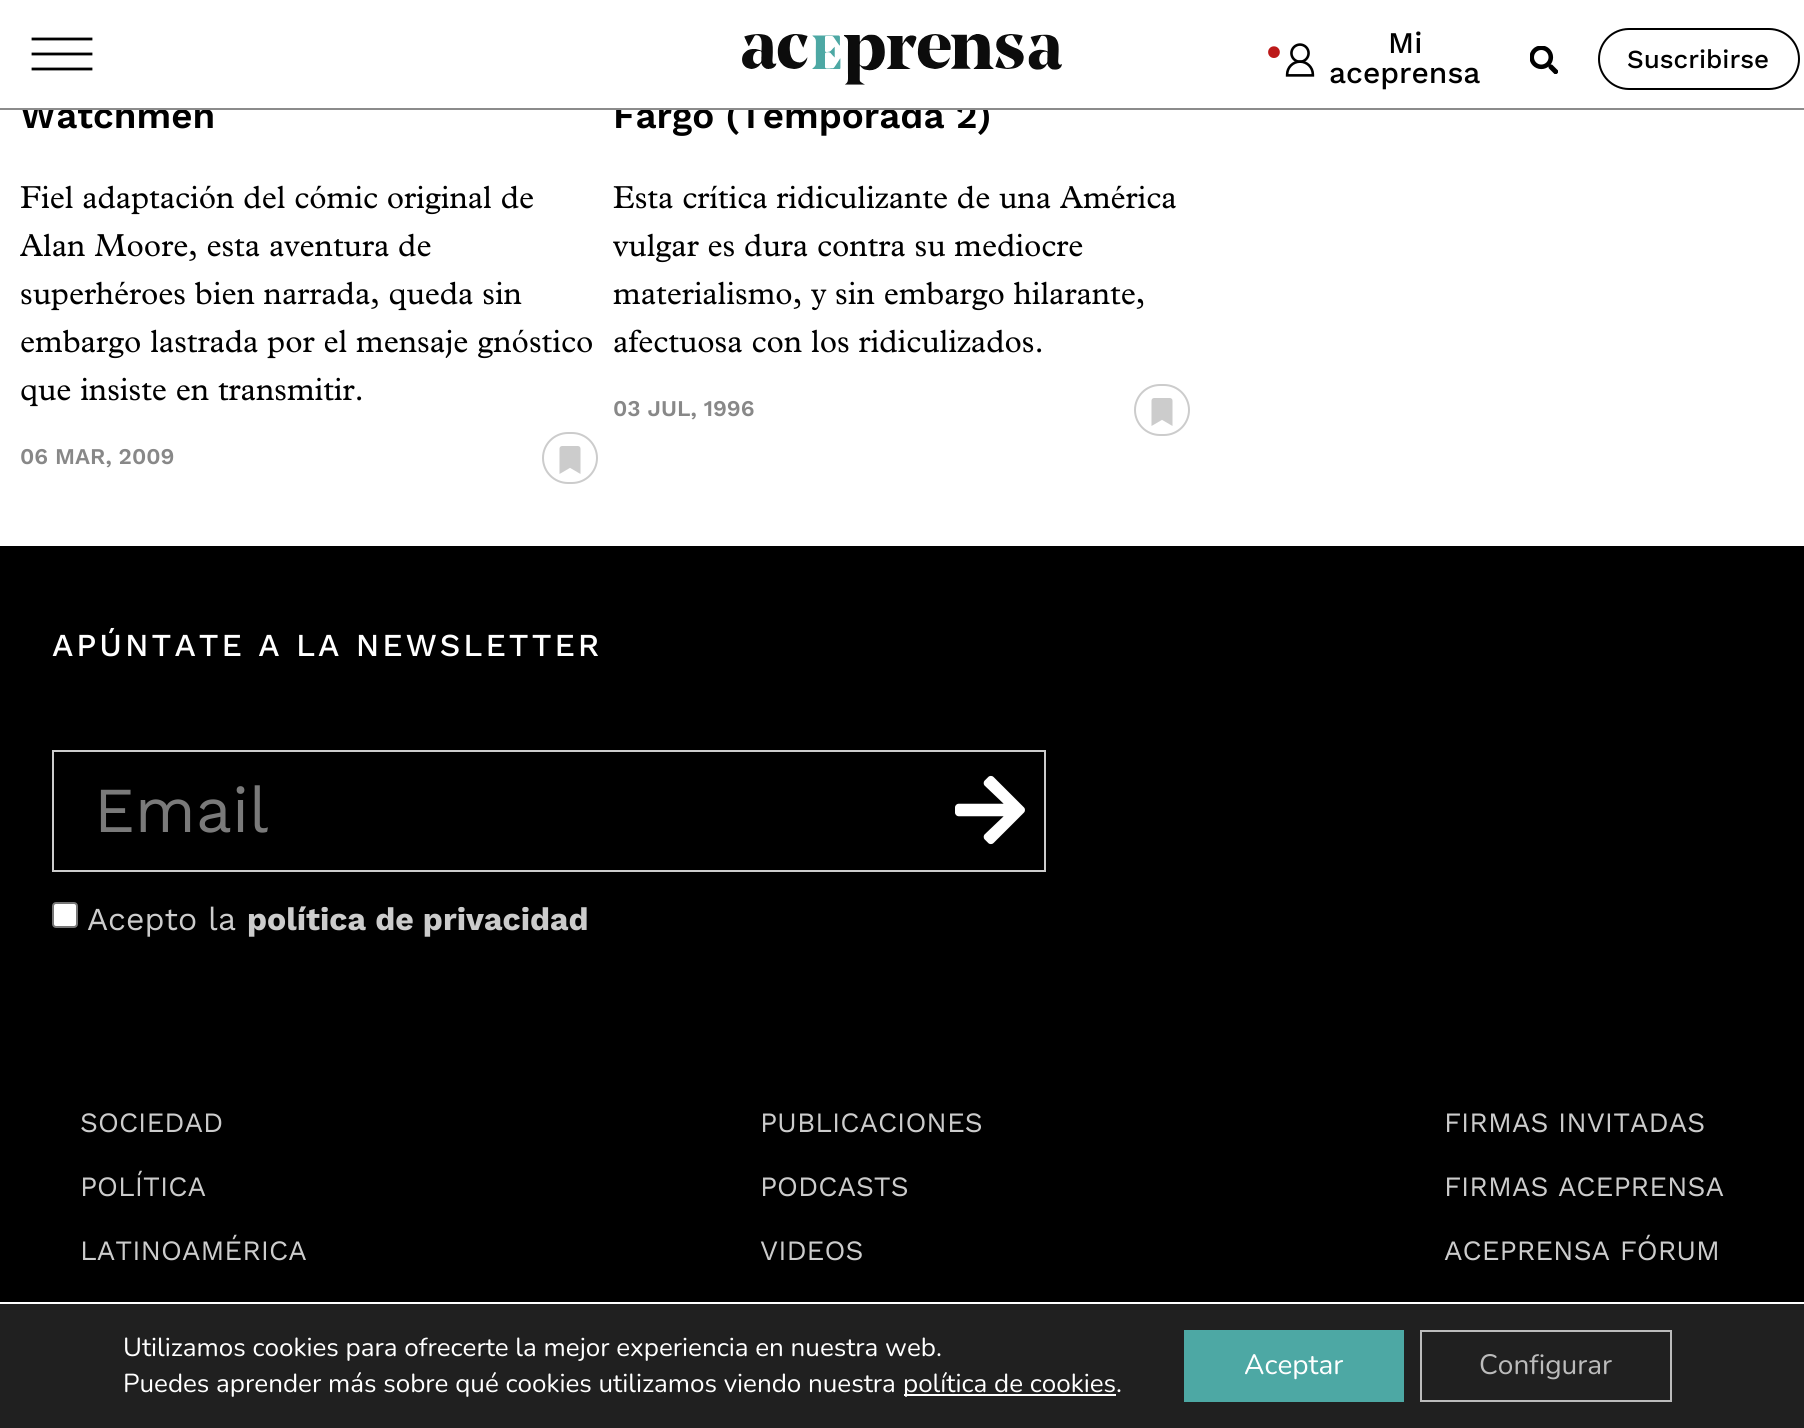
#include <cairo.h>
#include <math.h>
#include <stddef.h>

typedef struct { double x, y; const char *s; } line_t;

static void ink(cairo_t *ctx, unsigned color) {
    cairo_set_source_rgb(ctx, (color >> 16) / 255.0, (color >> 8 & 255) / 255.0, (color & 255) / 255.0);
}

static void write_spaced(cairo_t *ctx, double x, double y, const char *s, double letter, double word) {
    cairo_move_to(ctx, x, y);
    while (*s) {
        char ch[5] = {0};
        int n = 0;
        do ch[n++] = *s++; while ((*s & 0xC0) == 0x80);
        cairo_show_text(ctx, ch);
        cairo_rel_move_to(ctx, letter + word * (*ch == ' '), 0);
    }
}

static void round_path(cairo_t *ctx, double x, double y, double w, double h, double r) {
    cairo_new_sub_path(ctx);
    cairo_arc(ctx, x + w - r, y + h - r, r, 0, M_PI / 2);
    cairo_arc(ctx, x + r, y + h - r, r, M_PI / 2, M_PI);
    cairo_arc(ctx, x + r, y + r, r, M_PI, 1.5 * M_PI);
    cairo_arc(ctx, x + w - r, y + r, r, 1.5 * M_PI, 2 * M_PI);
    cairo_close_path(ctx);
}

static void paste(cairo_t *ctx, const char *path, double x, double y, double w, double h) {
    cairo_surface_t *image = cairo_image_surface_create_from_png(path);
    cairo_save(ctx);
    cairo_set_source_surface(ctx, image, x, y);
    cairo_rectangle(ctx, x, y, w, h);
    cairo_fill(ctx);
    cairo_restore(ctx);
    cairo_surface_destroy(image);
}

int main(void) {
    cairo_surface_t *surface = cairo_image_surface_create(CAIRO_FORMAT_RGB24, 1804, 1428);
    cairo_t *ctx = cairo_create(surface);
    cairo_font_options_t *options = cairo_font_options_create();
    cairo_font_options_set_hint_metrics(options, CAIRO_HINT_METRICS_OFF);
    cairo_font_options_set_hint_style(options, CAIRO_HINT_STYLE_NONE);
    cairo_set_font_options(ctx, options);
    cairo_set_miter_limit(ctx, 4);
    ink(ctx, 0xFFFFFF);
    cairo_paint(ctx);
    cairo_select_font_face(ctx, "Work Sans SemiBold", CAIRO_FONT_SLANT_NORMAL, CAIRO_FONT_WEIGHT_NORMAL);
    cairo_set_font_size(ctx, 36.75);
    ink(ctx, 0x000000);
    cairo_move_to(ctx, 20, 128);
    cairo_show_text(ctx, "Watchmen");
    cairo_move_to(ctx, 613, 128);
    cairo_show_text(ctx, "Fargo (Temporada 2)");
    ink(ctx, 0xFFFFFF);
    cairo_rectangle(ctx, 20, 100, 968, 8);
    cairo_fill(ctx);
    ink(ctx, 0x8B8B8B);
    cairo_rectangle(ctx, 0, 108, 1804, 2);
    cairo_fill(ctx);
    cairo_new_path(ctx);
    cairo_move_to(ctx, 33, 39);
    cairo_line_to(ctx, 91, 39);
    cairo_move_to(ctx, 33, 54);
    cairo_line_to(ctx, 91, 54);
    cairo_move_to(ctx, 33, 69);
    cairo_line_to(ctx, 91, 69);
    ink(ctx, 0x000000);
    cairo_set_line_width(ctx, 2.8);
    cairo_set_line_cap(ctx, CAIRO_LINE_CAP_SQUARE);
    cairo_stroke(ctx);
    paste(ctx, "media/1.png", 742, 34, 320, 51);
    cairo_select_font_face(ctx, "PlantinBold", CAIRO_FONT_SLANT_NORMAL, CAIRO_FONT_WEIGHT_BOLD);
    cairo_set_font_size(ctx, 64);
    ink(ctx, 0xBC1919);
    cairo_move_to(ctx, 1263, 73);
    cairo_show_text(ctx, "·");
    paste(ctx, "media/2.png", 1285, 43, 30, 34);
    cairo_select_font_face(ctx, "Work Sans Medium", CAIRO_FONT_SLANT_NORMAL, CAIRO_FONT_WEIGHT_NORMAL);
    cairo_set_font_size(ctx, 30);
    ink(ctx, 0x000000);
    cairo_move_to(ctx, 1388, 53);
    cairo_show_text(ctx, "Mi");
    cairo_move_to(ctx, 1329, 83);
    cairo_show_text(ctx, "aceprensa");
    paste(ctx, "media/3.png", 1530, 46, 28, 28);
    round_path(ctx, 1599, 29, 200, 60, 30);
    cairo_set_line_width(ctx, 2);
    cairo_set_line_cap(ctx, CAIRO_LINE_CAP_BUTT);
    cairo_stroke(ctx);
    cairo_set_font_size(ctx, 26);
    cairo_move_to(ctx, 1627, 68);
    cairo_show_text(ctx, "Suscribirse");
    cairo_select_font_face(ctx, "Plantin", CAIRO_FONT_SLANT_NORMAL, CAIRO_FONT_WEIGHT_NORMAL);
    cairo_set_font_size(ctx, 32);
    {
        static const line_t items[] = {
            {20, 208, "Fiel adaptación del cómic original de"},
            {20, 256, "Alan Moore, esta aventura de"},
            {20, 304, "superhéroes bien narrada, queda sin"},
            {20, 352, "embargo lastrada por el mensaje gnóstico"},
            {20, 400, "que insiste en transmitir."},
        };
        for (size_t i = 0; i < sizeof items / sizeof *items; i++) {
            cairo_move_to(ctx, items[i].x, items[i].y);
            cairo_show_text(ctx, items[i].s);
        }
    }
    cairo_select_font_face(ctx, "Work Sans SemiBold", CAIRO_FONT_SLANT_NORMAL, CAIRO_FONT_WEIGHT_NORMAL);
    cairo_set_font_size(ctx, 22.5);
    ink(ctx, 0x888888);
    cairo_move_to(ctx, 20, 464);
    cairo_show_text(ctx, "06 MAR, 2009");
    round_path(ctx, 543, 433, 54, 50, 25);
    ink(ctx, 0xCCCCCC);
    cairo_stroke(ctx);
    paste(ctx, "media/4.png", 559, 446, 22, 28);
    cairo_select_font_face(ctx, "Plantin", CAIRO_FONT_SLANT_NORMAL, CAIRO_FONT_WEIGHT_NORMAL);
    cairo_set_font_size(ctx, 32);
    ink(ctx, 0x000000);
    {
        static const line_t items[] = {
            {613, 208, "Esta crítica ridiculizante de una América"},
            {613, 256, "vulgar es dura contra su mediocre"},
            {613, 304, "materialismo, y sin embargo hilarante,"},
            {613, 352, "afectuosa con los ridiculizados."},
        };
        for (size_t i = 0; i < sizeof items / sizeof *items; i++) {
            cairo_move_to(ctx, items[i].x, items[i].y);
            cairo_show_text(ctx, items[i].s);
        }
    }
    cairo_select_font_face(ctx, "Work Sans SemiBold", CAIRO_FONT_SLANT_NORMAL, CAIRO_FONT_WEIGHT_NORMAL);
    cairo_set_font_size(ctx, 22.5);
    ink(ctx, 0x888888);
    cairo_move_to(ctx, 613, 416);
    cairo_show_text(ctx, "03 JUL, 1996");
    round_path(ctx, 1135, 385, 54, 50, 25);
    ink(ctx, 0xCCCCCC);
    cairo_stroke(ctx);
    paste(ctx, "media/4.png", 1151, 398, 22, 28);
    ink(ctx, 0x000000);
    cairo_rectangle(ctx, 0, 546, 1804, 756);
    cairo_fill(ctx);
    cairo_select_font_face(ctx, "Work Sans Medium", CAIRO_FONT_SLANT_NORMAL, CAIRO_FONT_WEIGHT_NORMAL);
    cairo_set_font_size(ctx, 32);
    ink(ctx, 0xFFFFFF);
    write_spaced(ctx, 52, 656, "APÚNTATE A LA NEWSLETTER", 3, 0);
    cairo_rectangle(ctx, 53, 751, 992, 120);
    ink(ctx, 0xCCCCCC);
    cairo_stroke(ctx);
    cairo_select_font_face(ctx, "Work Sans", CAIRO_FONT_SLANT_NORMAL, CAIRO_FONT_WEIGHT_NORMAL);
    cairo_set_font_size(ctx, 64);
    ink(ctx, 0x7A7A7A);
    cairo_move_to(ctx, 94, 832);
    cairo_show_text(ctx, "Email");
    paste(ctx, "media/5.png", 955, 775, 70, 70);
    ink(ctx, 0xFFFFFF);
    round_path(ctx, 53, 903, 24, 24, 3);
    cairo_fill_preserve(ctx);
    ink(ctx, 0x767676);
    cairo_stroke(ctx);
    cairo_set_font_size(ctx, 32);
    ink(ctx, 0xCCCCCC);
    cairo_move_to(ctx, 87, 930);
    cairo_show_text(ctx, "Acepto la");
    cairo_select_font_face(ctx, "Work Sans", CAIRO_FONT_SLANT_NORMAL, CAIRO_FONT_WEIGHT_BOLD);
    cairo_move_to(ctx, 247, 930);
    cairo_show_text(ctx, "política de privacidad");
    cairo_select_font_face(ctx, "Work Sans", CAIRO_FONT_SLANT_NORMAL, CAIRO_FONT_WEIGHT_NORMAL);
    cairo_set_font_size(ctx, 28);
    {
        static const line_t items[] = {
            {80, 1132, "SOCIEDAD"},
            {80, 1196, "POLÍTICA"},
            {80, 1260, "LATINOAMÉRICA"},
            {760, 1132, "PUBLICACIONES"},
            {760, 1196, "PODCASTS"},
            {760, 1260, "VIDEOS"},
            {1444, 1132, "FIRMAS INVITADAS"},
            {1444, 1196, "FIRMAS ACEPRENSA"},
            {1444, 1260, "ACEPRENSA FÓRUM"},
        };
        for (size_t i = 0; i < sizeof items / sizeof *items; i++) {
            cairo_move_to(ctx, items[i].x, items[i].y);
            cairo_show_text(ctx, items[i].s);
        }
    }
    ink(ctx, 0x202020);
    cairo_rectangle(ctx, 0, 1304, 1804, 124);
    cairo_fill(ctx);
    cairo_select_font_face(ctx, "Nunito", CAIRO_FONT_SLANT_NORMAL, CAIRO_FONT_WEIGHT_NORMAL);
    cairo_set_font_size(ctx, 26);
    ink(ctx, 0xFFFFFF);
    cairo_move_to(ctx, 123, 1356);
    cairo_show_text(ctx, "Utilizamos cookies para ofrecerte la mejor experiencia en nuestra web.");
    cairo_move_to(ctx, 123, 1392);
    cairo_show_text(ctx, "Puedes aprender más sobre qué cookies utilizamos viendo nuestra");
    cairo_rectangle(ctx, 904, 1394, 212, 2);
    cairo_fill(ctx);
    cairo_move_to(ctx, 903, 1392);
    cairo_show_text(ctx, "política de cookies.");
    ink(ctx, 0x4DA8A4);
    cairo_rectangle(ctx, 1184, 1330, 220, 72);
    cairo_fill(ctx);
    cairo_set_font_size(ctx, 28);
    ink(ctx, 0xFFFFFF);
    cairo_move_to(ctx, 1244, 1374);
    cairo_show_text(ctx, "Aceptar");
    cairo_rectangle(ctx, 1421, 1331, 250, 70);
    ink(ctx, 0xBCBCBC);
    cairo_stroke(ctx);
    cairo_move_to(ctx, 1479, 1374);
    cairo_show_text(ctx, "Configurar");
    cairo_surface_write_to_png(surface, "image.png");
    cairo_font_options_destroy(options);
    cairo_destroy(ctx);
    cairo_surface_destroy(surface);
    return 0;
}
